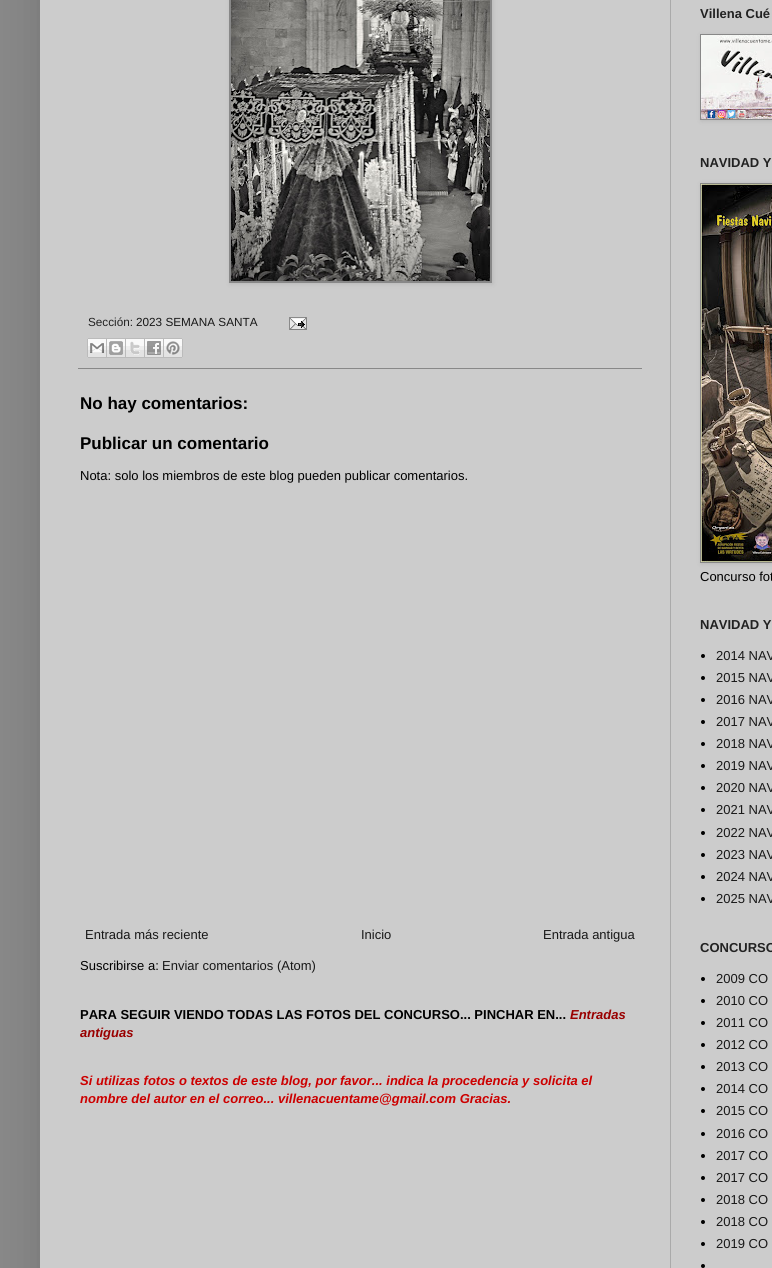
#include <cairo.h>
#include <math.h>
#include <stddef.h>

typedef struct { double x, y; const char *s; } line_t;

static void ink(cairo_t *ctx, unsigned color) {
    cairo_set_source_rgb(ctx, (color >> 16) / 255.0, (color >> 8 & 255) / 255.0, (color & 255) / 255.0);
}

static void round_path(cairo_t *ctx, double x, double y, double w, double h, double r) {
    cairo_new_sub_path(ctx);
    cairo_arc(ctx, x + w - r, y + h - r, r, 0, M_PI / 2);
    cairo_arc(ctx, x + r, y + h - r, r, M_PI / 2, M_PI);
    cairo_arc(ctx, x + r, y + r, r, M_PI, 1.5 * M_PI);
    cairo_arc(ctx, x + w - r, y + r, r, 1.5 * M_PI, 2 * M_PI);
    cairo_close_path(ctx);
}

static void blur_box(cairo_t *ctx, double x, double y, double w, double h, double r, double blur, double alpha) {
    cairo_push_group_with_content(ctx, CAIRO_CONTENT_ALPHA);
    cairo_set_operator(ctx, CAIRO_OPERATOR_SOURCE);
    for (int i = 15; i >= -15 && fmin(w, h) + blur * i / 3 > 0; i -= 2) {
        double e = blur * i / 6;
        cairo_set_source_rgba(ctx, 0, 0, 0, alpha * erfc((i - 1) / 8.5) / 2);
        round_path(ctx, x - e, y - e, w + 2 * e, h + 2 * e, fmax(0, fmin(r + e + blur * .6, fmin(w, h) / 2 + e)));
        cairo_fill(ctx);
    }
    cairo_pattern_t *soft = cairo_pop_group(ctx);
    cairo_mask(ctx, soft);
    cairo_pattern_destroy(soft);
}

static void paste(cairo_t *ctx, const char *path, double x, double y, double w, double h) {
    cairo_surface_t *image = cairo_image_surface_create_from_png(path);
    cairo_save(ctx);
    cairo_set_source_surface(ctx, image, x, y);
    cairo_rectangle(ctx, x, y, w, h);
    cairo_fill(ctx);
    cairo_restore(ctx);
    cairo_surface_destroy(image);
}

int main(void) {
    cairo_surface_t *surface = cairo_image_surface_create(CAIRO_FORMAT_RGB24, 772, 1268);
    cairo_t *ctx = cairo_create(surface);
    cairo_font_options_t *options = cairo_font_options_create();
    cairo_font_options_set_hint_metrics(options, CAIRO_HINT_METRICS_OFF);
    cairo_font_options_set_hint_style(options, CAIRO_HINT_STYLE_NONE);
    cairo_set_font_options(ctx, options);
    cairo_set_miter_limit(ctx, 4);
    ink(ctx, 0x888888);
    cairo_paint(ctx);
    ink(ctx, 0x000000);
    blur_box(ctx, 40, -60, 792, 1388, 0, 20, 0.15);
    ink(ctx, 0xCCCCCC);
    cairo_rectangle(ctx, 40, 0, 732, 1268);
    cairo_fill(ctx);
    ink(ctx, 0xAAAAAA);
    cairo_rectangle(ctx, 670, 0, 1, 1268);
    cairo_fill(ctx);
    ink(ctx, 0x000000);
    blur_box(ctx, 230, -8, 263, 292, 0, 2.5, 0.1);
    ink(ctx, 0x888888);
    cairo_rectangle(ctx, 229, 0, 263, 283);
    cairo_fill(ctx);
    paste(ctx, "media/1.png", 231, 0, 259, 281);
    cairo_rectangle(ctx, 78, 368, 564, 1);
    cairo_fill(ctx);
    cairo_select_font_face(ctx, "Liberation Sans", CAIRO_FONT_SLANT_NORMAL, CAIRO_FONT_WEIGHT_NORMAL);
    cairo_set_font_size(ctx, 11.75);
    ink(ctx, 0x222222);
    cairo_move_to(ctx, 88, 326);
    cairo_show_text(ctx, "Sección:");
    ink(ctx, 0x181818);
    cairo_move_to(ctx, 136, 326);
    cairo_show_text(ctx, "2023 SEMANA SANTA");
    paste(ctx, "media/2.png", 289, 317, 18, 13);
    paste(ctx, "media/3.png", 87, 338, 20, 20);
    paste(ctx, "media/4.png", 107, 338, 19, 20);
    paste(ctx, "media/5.png", 126, 338, 19, 20);
    paste(ctx, "media/6.png", 145, 338, 19, 20);
    paste(ctx, "media/7.png", 164, 338, 19, 20);
    cairo_select_font_face(ctx, "Liberation Sans", CAIRO_FONT_SLANT_NORMAL, CAIRO_FONT_WEIGHT_BOLD);
    cairo_set_font_size(ctx, 17);
    ink(ctx, 0x000000);
    cairo_move_to(ctx, 80, 409);
    cairo_show_text(ctx, "No hay comentarios:");
    cairo_move_to(ctx, 80, 449);
    cairo_show_text(ctx, "Publicar un comentario");
    cairo_select_font_face(ctx, "Liberation Sans", CAIRO_FONT_SLANT_NORMAL, CAIRO_FONT_WEIGHT_NORMAL);
    cairo_set_font_size(ctx, 13);
    cairo_move_to(ctx, 80, 480);
    cairo_show_text(ctx, "Nota: solo los miembros de este blog pueden publicar comentarios.");
    ink(ctx, 0x181818);
    {
        static const line_t items[] = {
            {85, 939, "Entrada más reciente"},
            {361, 939, "Inicio"},
            {543, 939, "Entrada antigua"},
        };
        for (size_t i = 0; i < sizeof items / sizeof *items; i++) {
            cairo_move_to(ctx, items[i].x, items[i].y);
            cairo_show_text(ctx, items[i].s);
        }
    }
    ink(ctx, 0x000000);
    cairo_move_to(ctx, 80, 970);
    cairo_show_text(ctx, "Suscribirse a:");
    ink(ctx, 0x181818);
    cairo_move_to(ctx, 162, 970);
    cairo_show_text(ctx, "Enviar comentarios (Atom)");
    cairo_select_font_face(ctx, "Liberation Sans", CAIRO_FONT_SLANT_NORMAL, CAIRO_FONT_WEIGHT_BOLD);
    ink(ctx, 0x000000);
    cairo_move_to(ctx, 80, 1019);
    cairo_show_text(ctx, "PARA SEGUIR VIENDO TODAS LAS FOTOS DEL CONCURSO... PINCHAR EN...");
    cairo_select_font_face(ctx, "Liberation Sans", CAIRO_FONT_SLANT_ITALIC, CAIRO_FONT_WEIGHT_BOLD);
    ink(ctx, 0x990000);
    cairo_move_to(ctx, 570, 1019);
    cairo_show_text(ctx, "Entradas");
    cairo_move_to(ctx, 80, 1037);
    cairo_show_text(ctx, "antiguas");
    ink(ctx, 0xCC0000);
    cairo_move_to(ctx, 80, 1085);
    cairo_show_text(ctx, "Si utilizas fotos o textos de este blog, por favor... indica la procedencia y solicita el");
    cairo_move_to(ctx, 80, 1103);
    cairo_show_text(ctx, "nombre del autor en el correo... villenacuentame@gmail.com Gracias.");
    cairo_select_font_face(ctx, "Liberation Sans", CAIRO_FONT_SLANT_NORMAL, CAIRO_FONT_WEIGHT_BOLD);
    ink(ctx, 0x222222);
    cairo_move_to(ctx, 700, 18);
    cairo_show_text(ctx, "Villena Cué");
    ink(ctx, 0x000000);
    blur_box(ctx, 701, 35, 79, 86, 0, 2.5, 0.1);
    ink(ctx, 0x888888);
    cairo_rectangle(ctx, 700, 34, 72, 86);
    cairo_fill(ctx);
    paste(ctx, "media/8.png", 701, 35, 71, 84);
    ink(ctx, 0x222222);
    cairo_move_to(ctx, 700, 167);
    cairo_show_text(ctx, "NAVIDAD Y");
    ink(ctx, 0x000000);
    blur_box(ctx, 701, 184, 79, 380, 0, 2.5, 0.1);
    ink(ctx, 0x888888);
    cairo_rectangle(ctx, 700, 183, 72, 380);
    cairo_fill(ctx);
    paste(ctx, "media/9.png", 701, 184, 71, 378);
    cairo_select_font_face(ctx, "Liberation Sans", CAIRO_FONT_SLANT_NORMAL, CAIRO_FONT_WEIGHT_NORMAL);
    ink(ctx, 0x000000);
    cairo_move_to(ctx, 700, 581);
    cairo_show_text(ctx, "Concurso fot");
    cairo_select_font_face(ctx, "Liberation Sans", CAIRO_FONT_SLANT_NORMAL, CAIRO_FONT_WEIGHT_BOLD);
    ink(ctx, 0x222222);
    cairo_move_to(ctx, 700, 629);
    cairo_show_text(ctx, "NAVIDAD Y");
    ink(ctx, 0x000000);
    cairo_new_path(ctx);
    cairo_arc(ctx, 703, 656, 2, 0, 2 * M_PI);
    cairo_fill(ctx);
    cairo_select_font_face(ctx, "Liberation Sans", CAIRO_FONT_SLANT_NORMAL, CAIRO_FONT_WEIGHT_NORMAL);
    ink(ctx, 0x181818);
    cairo_move_to(ctx, 716, 660);
    cairo_show_text(ctx, "2014 NAV");
    ink(ctx, 0x000000);
    cairo_new_path(ctx);
    cairo_arc(ctx, 703, 678, 2, 0, 2 * M_PI);
    cairo_fill(ctx);
    ink(ctx, 0x181818);
    cairo_move_to(ctx, 716, 682);
    cairo_show_text(ctx, "2015 NAV");
    ink(ctx, 0x000000);
    cairo_new_path(ctx);
    cairo_arc(ctx, 703, 700, 2, 0, 2 * M_PI);
    cairo_fill(ctx);
    ink(ctx, 0x181818);
    cairo_move_to(ctx, 716, 704);
    cairo_show_text(ctx, "2016 NAV");
    ink(ctx, 0x000000);
    cairo_new_path(ctx);
    cairo_arc(ctx, 703, 722, 2, 0, 2 * M_PI);
    cairo_fill(ctx);
    ink(ctx, 0x181818);
    cairo_move_to(ctx, 716, 726);
    cairo_show_text(ctx, "2017 NAV");
    ink(ctx, 0x000000);
    cairo_new_path(ctx);
    cairo_arc(ctx, 703, 744, 2, 0, 2 * M_PI);
    cairo_fill(ctx);
    ink(ctx, 0x181818);
    cairo_move_to(ctx, 716, 748);
    cairo_show_text(ctx, "2018 NAV");
    ink(ctx, 0x000000);
    cairo_new_path(ctx);
    cairo_arc(ctx, 703, 766, 2, 0, 2 * M_PI);
    cairo_fill(ctx);
    ink(ctx, 0x181818);
    cairo_move_to(ctx, 716, 770);
    cairo_show_text(ctx, "2019 NAV");
    ink(ctx, 0x000000);
    cairo_new_path(ctx);
    cairo_arc(ctx, 703, 788, 2, 0, 2 * M_PI);
    cairo_fill(ctx);
    ink(ctx, 0x181818);
    cairo_move_to(ctx, 716, 792);
    cairo_show_text(ctx, "2020 NAV");
    ink(ctx, 0x000000);
    cairo_new_path(ctx);
    cairo_arc(ctx, 703, 810, 2, 0, 2 * M_PI);
    cairo_fill(ctx);
    ink(ctx, 0x181818);
    cairo_move_to(ctx, 716, 814);
    cairo_show_text(ctx, "2021 NAV");
    ink(ctx, 0x000000);
    cairo_new_path(ctx);
    cairo_arc(ctx, 703, 833, 2, 0, 2 * M_PI);
    cairo_fill(ctx);
    ink(ctx, 0x181818);
    cairo_move_to(ctx, 716, 837);
    cairo_show_text(ctx, "2022 NAV");
    ink(ctx, 0x000000);
    cairo_new_path(ctx);
    cairo_arc(ctx, 703, 855, 2, 0, 2 * M_PI);
    cairo_fill(ctx);
    ink(ctx, 0x181818);
    cairo_move_to(ctx, 716, 859);
    cairo_show_text(ctx, "2023 NAV");
    ink(ctx, 0x000000);
    cairo_new_path(ctx);
    cairo_arc(ctx, 703, 877, 2, 0, 2 * M_PI);
    cairo_fill(ctx);
    ink(ctx, 0x181818);
    cairo_move_to(ctx, 716, 881);
    cairo_show_text(ctx, "2024 NAV");
    ink(ctx, 0x000000);
    cairo_new_path(ctx);
    cairo_arc(ctx, 703, 899, 2, 0, 2 * M_PI);
    cairo_fill(ctx);
    ink(ctx, 0x181818);
    cairo_move_to(ctx, 716, 903);
    cairo_show_text(ctx, "2025 NAV");
    cairo_select_font_face(ctx, "Liberation Sans", CAIRO_FONT_SLANT_NORMAL, CAIRO_FONT_WEIGHT_BOLD);
    ink(ctx, 0x222222);
    cairo_move_to(ctx, 700, 952);
    cairo_show_text(ctx, "CONCURSO");
    ink(ctx, 0x000000);
    cairo_new_path(ctx);
    cairo_arc(ctx, 703, 979, 2, 0, 2 * M_PI);
    cairo_fill(ctx);
    cairo_select_font_face(ctx, "Liberation Sans", CAIRO_FONT_SLANT_NORMAL, CAIRO_FONT_WEIGHT_NORMAL);
    ink(ctx, 0x181818);
    cairo_move_to(ctx, 716, 983);
    cairo_show_text(ctx, "2009 CO");
    ink(ctx, 0x000000);
    cairo_new_path(ctx);
    cairo_arc(ctx, 703, 1001, 2, 0, 2 * M_PI);
    cairo_fill(ctx);
    ink(ctx, 0x181818);
    cairo_move_to(ctx, 716, 1005);
    cairo_show_text(ctx, "2010 CO");
    ink(ctx, 0x000000);
    cairo_new_path(ctx);
    cairo_arc(ctx, 703, 1023, 2, 0, 2 * M_PI);
    cairo_fill(ctx);
    ink(ctx, 0x181818);
    cairo_move_to(ctx, 716, 1027);
    cairo_show_text(ctx, "2011 CO");
    ink(ctx, 0x000000);
    cairo_new_path(ctx);
    cairo_arc(ctx, 703, 1045, 2, 0, 2 * M_PI);
    cairo_fill(ctx);
    ink(ctx, 0x181818);
    cairo_move_to(ctx, 716, 1049);
    cairo_show_text(ctx, "2012 CO");
    ink(ctx, 0x000000);
    cairo_new_path(ctx);
    cairo_arc(ctx, 703, 1067, 2, 0, 2 * M_PI);
    cairo_fill(ctx);
    ink(ctx, 0x181818);
    cairo_move_to(ctx, 716, 1071);
    cairo_show_text(ctx, "2013 CO");
    ink(ctx, 0x000000);
    cairo_new_path(ctx);
    cairo_arc(ctx, 703, 1089, 2, 0, 2 * M_PI);
    cairo_fill(ctx);
    ink(ctx, 0x181818);
    cairo_move_to(ctx, 716, 1093);
    cairo_show_text(ctx, "2014 CO");
    ink(ctx, 0x000000);
    cairo_new_path(ctx);
    cairo_arc(ctx, 703, 1111, 2, 0, 2 * M_PI);
    cairo_fill(ctx);
    ink(ctx, 0x181818);
    cairo_move_to(ctx, 716, 1115);
    cairo_show_text(ctx, "2015 CO");
    ink(ctx, 0x000000);
    cairo_new_path(ctx);
    cairo_arc(ctx, 703, 1134, 2, 0, 2 * M_PI);
    cairo_fill(ctx);
    ink(ctx, 0x181818);
    cairo_move_to(ctx, 716, 1138);
    cairo_show_text(ctx, "2016 CO");
    ink(ctx, 0x000000);
    cairo_new_path(ctx);
    cairo_arc(ctx, 703, 1156, 2, 0, 2 * M_PI);
    cairo_fill(ctx);
    ink(ctx, 0x181818);
    cairo_move_to(ctx, 716, 1160);
    cairo_show_text(ctx, "2017 CO");
    ink(ctx, 0x000000);
    cairo_new_path(ctx);
    cairo_arc(ctx, 703, 1178, 2, 0, 2 * M_PI);
    cairo_fill(ctx);
    ink(ctx, 0x181818);
    cairo_move_to(ctx, 716, 1182);
    cairo_show_text(ctx, "2017 CO");
    ink(ctx, 0x000000);
    cairo_new_path(ctx);
    cairo_arc(ctx, 703, 1200, 2, 0, 2 * M_PI);
    cairo_fill(ctx);
    ink(ctx, 0x181818);
    cairo_move_to(ctx, 716, 1204);
    cairo_show_text(ctx, "2018 CO");
    ink(ctx, 0x000000);
    cairo_new_path(ctx);
    cairo_arc(ctx, 703, 1222, 2, 0, 2 * M_PI);
    cairo_fill(ctx);
    ink(ctx, 0x181818);
    cairo_move_to(ctx, 716, 1226);
    cairo_show_text(ctx, "2018 CO");
    ink(ctx, 0x000000);
    cairo_new_path(ctx);
    cairo_arc(ctx, 703, 1244, 2, 0, 2 * M_PI);
    cairo_fill(ctx);
    ink(ctx, 0x181818);
    cairo_move_to(ctx, 716, 1248);
    cairo_show_text(ctx, "2019 CO");
    ink(ctx, 0x000000);
    cairo_new_path(ctx);
    cairo_arc(ctx, 703, 1266, 2, 0, 2 * M_PI);
    cairo_fill(ctx);
    cairo_surface_write_to_png(surface, "image.png");
    cairo_font_options_destroy(options);
    cairo_destroy(ctx);
    cairo_surface_destroy(surface);
    return 0;
}
